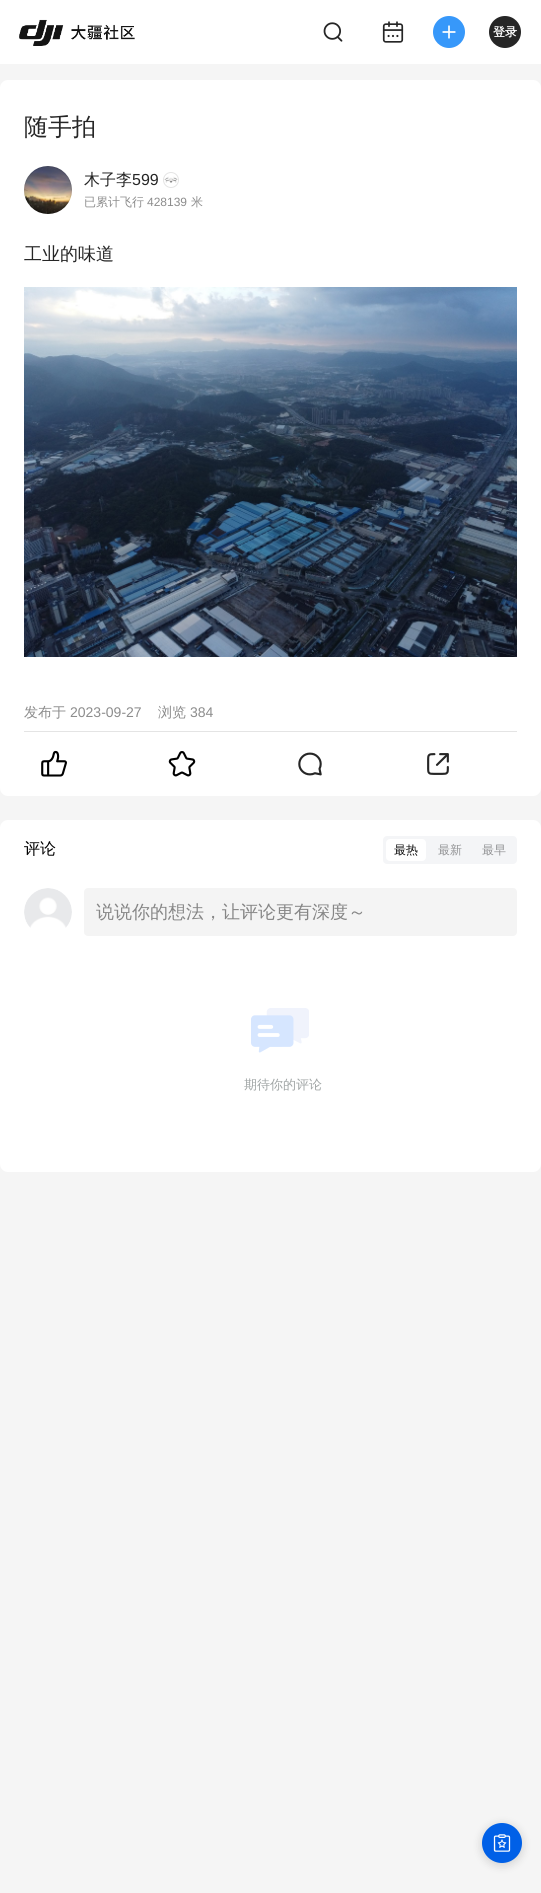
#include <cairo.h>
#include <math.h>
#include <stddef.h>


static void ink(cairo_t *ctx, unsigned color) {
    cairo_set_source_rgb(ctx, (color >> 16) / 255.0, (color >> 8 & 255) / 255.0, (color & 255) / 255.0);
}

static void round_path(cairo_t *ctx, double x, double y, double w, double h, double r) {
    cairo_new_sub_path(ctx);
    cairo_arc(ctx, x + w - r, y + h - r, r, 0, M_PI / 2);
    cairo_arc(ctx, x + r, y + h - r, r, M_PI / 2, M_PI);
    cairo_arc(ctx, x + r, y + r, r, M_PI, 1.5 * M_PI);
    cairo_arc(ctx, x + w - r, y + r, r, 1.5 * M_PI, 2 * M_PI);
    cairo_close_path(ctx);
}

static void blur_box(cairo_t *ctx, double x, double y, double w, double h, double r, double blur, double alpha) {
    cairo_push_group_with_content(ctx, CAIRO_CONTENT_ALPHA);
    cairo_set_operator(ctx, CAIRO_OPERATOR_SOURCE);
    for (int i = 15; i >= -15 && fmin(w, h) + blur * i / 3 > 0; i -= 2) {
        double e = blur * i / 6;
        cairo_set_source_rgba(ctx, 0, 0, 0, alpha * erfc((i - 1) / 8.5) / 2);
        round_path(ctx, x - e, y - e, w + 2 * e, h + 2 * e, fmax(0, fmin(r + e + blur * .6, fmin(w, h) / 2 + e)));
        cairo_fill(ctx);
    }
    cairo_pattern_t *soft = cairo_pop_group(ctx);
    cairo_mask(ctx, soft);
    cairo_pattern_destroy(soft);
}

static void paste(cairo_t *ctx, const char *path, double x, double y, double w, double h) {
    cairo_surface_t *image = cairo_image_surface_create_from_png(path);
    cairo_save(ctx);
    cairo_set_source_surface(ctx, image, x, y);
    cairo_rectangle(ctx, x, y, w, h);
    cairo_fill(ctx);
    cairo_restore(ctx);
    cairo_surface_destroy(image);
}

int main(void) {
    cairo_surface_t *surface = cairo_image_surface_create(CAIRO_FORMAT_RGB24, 541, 1893);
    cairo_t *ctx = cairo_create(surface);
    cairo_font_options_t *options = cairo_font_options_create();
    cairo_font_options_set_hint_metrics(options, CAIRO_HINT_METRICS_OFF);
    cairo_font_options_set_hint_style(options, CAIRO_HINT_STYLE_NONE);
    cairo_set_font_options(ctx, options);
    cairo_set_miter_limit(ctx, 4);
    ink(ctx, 0xF5F5F5);
    cairo_paint(ctx);
    ink(ctx, 0xFFFFFF);
    cairo_rectangle(ctx, 0, 0, 541, 64);
    cairo_fill(ctx);
    paste(ctx, "media/1.png", 19, 19, 116, 27);
    paste(ctx, "media/2.png", 323, 22, 20, 20);
    paste(ctx, "media/3.png", 382, 21, 22, 22);
    ink(ctx, 0x3798FA);
    cairo_arc(ctx, 449, 32, 16, 0, 2 * M_PI);
    cairo_fill(ctx);
    paste(ctx, "media/4.png", 442, 25, 14, 14);
    ink(ctx, 0x262626);
    cairo_arc(ctx, 505, 32, 16, 0, 2 * M_PI);
    cairo_fill(ctx);
    cairo_select_font_face(ctx, "WenQuanYi Zen Hei", CAIRO_FONT_SLANT_NORMAL, CAIRO_FONT_WEIGHT_BOLD);
    cairo_set_font_size(ctx, 12);
    ink(ctx, 0xFFFFFF);
    cairo_move_to(ctx, 493, 36);
    cairo_show_text(ctx, "登录");
    round_path(ctx, 0, 80, 541, 716, 8);
    cairo_fill(ctx);
    cairo_select_font_face(ctx, "WenQuanYi Zen Hei Medium", CAIRO_FONT_SLANT_NORMAL, CAIRO_FONT_WEIGHT_NORMAL);
    cairo_set_font_size(ctx, 24);
    ink(ctx, 0x262626);
    cairo_move_to(ctx, 24, 135);
    cairo_show_text(ctx, "随手拍");
    paste(ctx, "media/5.png", 24, 166, 48, 48);
    cairo_arc(ctx, 48, 190, 23.5, 0, 2 * M_PI);
    cairo_set_source_rgba(ctx, 0, 0, 0, 0.08);
    cairo_set_line_width(ctx, 1);
    cairo_stroke(ctx);
    cairo_set_font_size(ctx, 16);
    ink(ctx, 0x262626);
    cairo_move_to(ctx, 84, 185);
    cairo_show_text(ctx, "木子李");
    cairo_select_font_face(ctx, "Liberation Sans", CAIRO_FONT_SLANT_NORMAL, CAIRO_FONT_WEIGHT_NORMAL);
    cairo_move_to(ctx, 132, 185);
    cairo_show_text(ctx, "599");
    cairo_new_path(ctx);
    cairo_arc(ctx, 171, 180, 7.5, 0, 2 * M_PI);
    ink(ctx, 0xE4E4E4);
    cairo_stroke(ctx);
    paste(ctx, "media/6.png", 164, 176, 14, 7);
    cairo_select_font_face(ctx, "WenQuanYi Zen Hei Medium", CAIRO_FONT_SLANT_NORMAL, CAIRO_FONT_WEIGHT_NORMAL);
    cairo_set_font_size(ctx, 12);
    ink(ctx, 0x8C8C8C);
    cairo_move_to(ctx, 84, 206);
    cairo_show_text(ctx, "已累计飞行");
    cairo_select_font_face(ctx, "Liberation Sans", CAIRO_FONT_SLANT_NORMAL, CAIRO_FONT_WEIGHT_NORMAL);
    cairo_move_to(ctx, 147, 206);
    cairo_show_text(ctx, "428139");
    cairo_select_font_face(ctx, "WenQuanYi Zen Hei Medium", CAIRO_FONT_SLANT_NORMAL, CAIRO_FONT_WEIGHT_NORMAL);
    cairo_move_to(ctx, 191, 206);
    cairo_show_text(ctx, "米");
    cairo_set_font_size(ctx, 18);
    ink(ctx, 0x262626);
    cairo_move_to(ctx, 24, 260);
    cairo_show_text(ctx, "工业的味道");
    paste(ctx, "media/7.png", 24, 287, 493, 370);
    cairo_set_font_size(ctx, 14);
    ink(ctx, 0x8C8C8C);
    cairo_move_to(ctx, 24, 717);
    cairo_show_text(ctx, "发布于");
    cairo_select_font_face(ctx, "Liberation Sans", CAIRO_FONT_SLANT_NORMAL, CAIRO_FONT_WEIGHT_NORMAL);
    cairo_move_to(ctx, 70, 717);
    cairo_show_text(ctx, "2023-09-27");
    cairo_select_font_face(ctx, "WenQuanYi Zen Hei Medium", CAIRO_FONT_SLANT_NORMAL, CAIRO_FONT_WEIGHT_NORMAL);
    cairo_move_to(ctx, 158, 717);
    cairo_show_text(ctx, "浏览");
    cairo_select_font_face(ctx, "Liberation Sans", CAIRO_FONT_SLANT_NORMAL, CAIRO_FONT_WEIGHT_NORMAL);
    cairo_move_to(ctx, 190, 717);
    cairo_show_text(ctx, "384");
    ink(ctx, 0xE4E4E4);
    cairo_rectangle(ctx, 24, 731, 493, 1);
    cairo_fill(ctx);
    paste(ctx, "media/8.png", 41, 750, 26, 27);
    paste(ctx, "media/9.png", 168, 751, 28, 26);
    paste(ctx, "media/10.png", 298, 752, 24, 24);
    paste(ctx, "media/11.png", 427, 753, 22, 22);
    ink(ctx, 0xFFFFFF);
    round_path(ctx, 0, 820, 541, 352, 8);
    cairo_fill(ctx);
    cairo_select_font_face(ctx, "WenQuanYi Zen Hei Medium", CAIRO_FONT_SLANT_NORMAL, CAIRO_FONT_WEIGHT_NORMAL);
    cairo_set_font_size(ctx, 16);
    ink(ctx, 0x000000);
    cairo_move_to(ctx, 24, 854);
    cairo_show_text(ctx, "评论");
    ink(ctx, 0xF4F5F7);
    round_path(ctx, 383, 836, 134, 28, 4);
    cairo_fill(ctx);
    ink(ctx, 0xFFFFFF);
    round_path(ctx, 386, 839, 40, 22, 4);
    cairo_fill(ctx);
    cairo_set_font_size(ctx, 12);
    ink(ctx, 0x0C0C0C);
    cairo_move_to(ctx, 394, 854);
    cairo_show_text(ctx, "最热");
    ink(ctx, 0x919294);
    cairo_move_to(ctx, 438, 854);
    cairo_show_text(ctx, "最新");
    cairo_move_to(ctx, 482, 854);
    cairo_show_text(ctx, "最早");
    paste(ctx, "media/12.png", 24, 888, 48, 40);
    ink(ctx, 0xF4F4F4);
    round_path(ctx, 84, 888, 433, 48, 4);
    cairo_fill(ctx);
    cairo_set_font_size(ctx, 18);
    ink(ctx, 0x868686);
    cairo_move_to(ctx, 96, 918);
    cairo_show_text(ctx, "说说你的想法，让评论更有深度～");
    paste(ctx, "media/13.png", 251, 1008, 58, 45);
    cairo_set_font_size(ctx, 13);
    ink(ctx, 0xA0A5A5);
    cairo_move_to(ctx, 244, 1089);
    cairo_show_text(ctx, "期待你的评论");
    ink(ctx, 0x000000);
    blur_box(ctx, 482, 1825, 40, 40, 20, 5, 0.16);
    ink(ctx, 0x0060E7);
    cairo_arc(ctx, 502, 1843, 20, 0, 2 * M_PI);
    cairo_fill(ctx);
    paste(ctx, "media/14.png", 493, 1834, 18, 18);
    cairo_surface_write_to_png(surface, "image.png");
    cairo_font_options_destroy(options);
    cairo_destroy(ctx);
    cairo_surface_destroy(surface);
    return 0;
}
